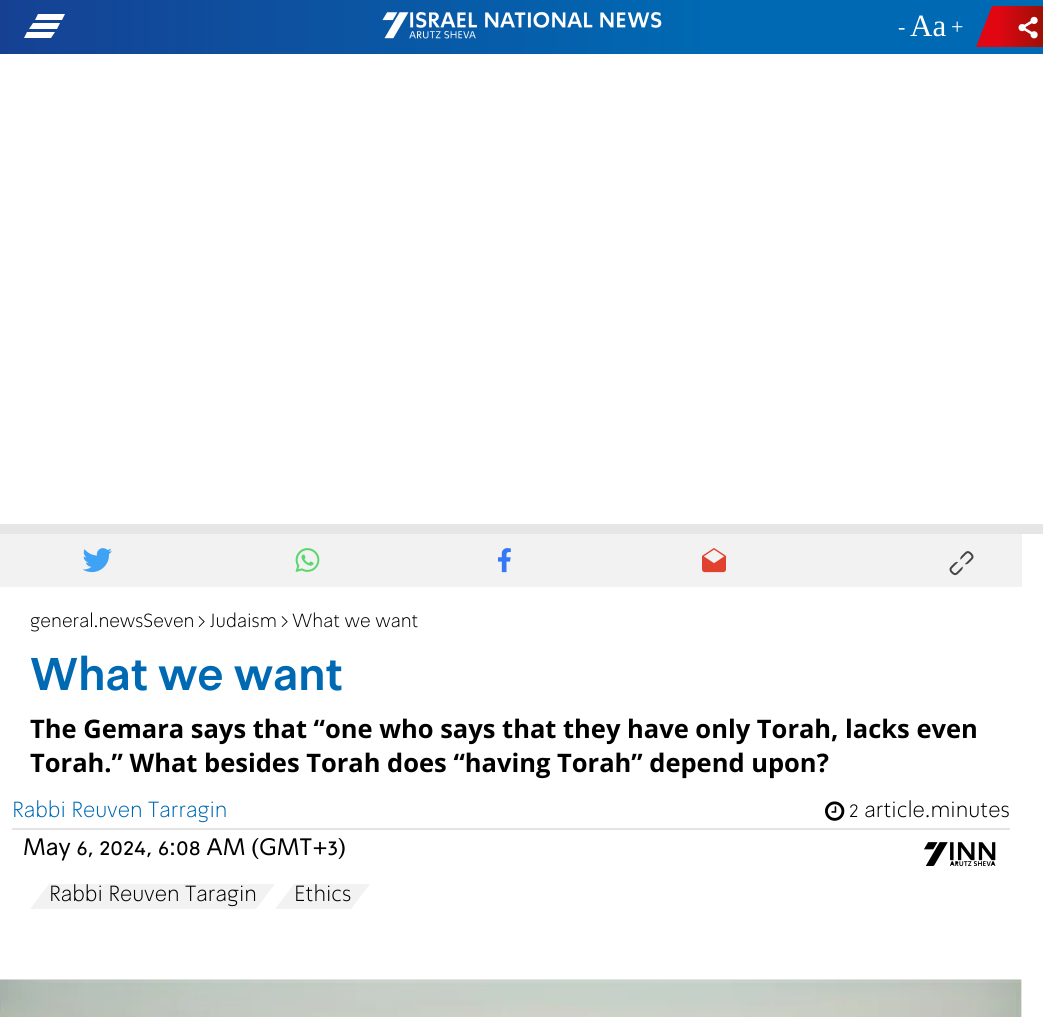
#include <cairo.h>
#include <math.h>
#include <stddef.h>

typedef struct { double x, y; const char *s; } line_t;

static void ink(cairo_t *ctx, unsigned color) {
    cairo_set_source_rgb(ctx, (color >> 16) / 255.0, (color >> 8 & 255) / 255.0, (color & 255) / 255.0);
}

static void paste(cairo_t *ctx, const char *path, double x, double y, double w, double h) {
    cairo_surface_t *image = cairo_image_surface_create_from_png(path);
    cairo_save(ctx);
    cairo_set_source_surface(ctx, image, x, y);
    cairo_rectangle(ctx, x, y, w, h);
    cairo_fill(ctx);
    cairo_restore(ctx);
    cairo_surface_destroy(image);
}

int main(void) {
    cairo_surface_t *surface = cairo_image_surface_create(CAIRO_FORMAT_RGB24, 1043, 1017);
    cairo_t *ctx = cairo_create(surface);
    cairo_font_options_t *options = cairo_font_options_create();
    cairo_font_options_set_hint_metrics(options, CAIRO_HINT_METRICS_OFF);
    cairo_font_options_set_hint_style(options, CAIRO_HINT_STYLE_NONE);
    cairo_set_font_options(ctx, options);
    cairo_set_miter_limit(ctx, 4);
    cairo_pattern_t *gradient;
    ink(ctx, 0xFFFFFF);
    cairo_paint(ctx);
    gradient = cairo_pattern_create_linear(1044, 27, 0, 27);
    cairo_pattern_add_color_stop_rgba(gradient, 0.32, 0, 0.412, 0.702, 1);
    cairo_pattern_add_color_stop_rgba(gradient, 1, 0.086, 0.255, 0.576, 1);
    cairo_set_source(ctx, gradient);
    cairo_pattern_destroy(gradient);
    cairo_rectangle(ctx, 0, 0, 1043, 54);
    cairo_fill(ctx);
    ink(ctx, 0xFFFFFF);
    cairo_new_path(ctx);
    cairo_move_to(ctx, 33, 23);
    cairo_line_to(ctx, 29, 29);
    cairo_line_to(ctx, 57, 29);
    cairo_line_to(ctx, 60, 23);
    cairo_close_path(ctx);
    cairo_move_to(ctx, 38, 14);
    cairo_line_to(ctx, 35, 20);
    cairo_line_to(ctx, 62, 20);
    cairo_line_to(ctx, 65, 14);
    cairo_close_path(ctx);
    cairo_move_to(ctx, 51, 38);
    cairo_line_to(ctx, 55, 32);
    cairo_line_to(ctx, 27, 32);
    cairo_line_to(ctx, 24, 38);
    cairo_close_path(ctx);
    cairo_fill(ctx);
    paste(ctx, "media/1.png", 382, 12, 280, 27);
    cairo_select_font_face(ctx, "Liberation Serif", CAIRO_FONT_SLANT_NORMAL, CAIRO_FONT_WEIGHT_NORMAL);
    cairo_set_font_size(ctx, 22);
    cairo_move_to(ctx, 898, 34);
    cairo_show_text(ctx, "-");
    cairo_set_font_size(ctx, 31);
    cairo_move_to(ctx, 910, 36);
    cairo_show_text(ctx, "Aa");
    cairo_set_font_size(ctx, 22);
    cairo_move_to(ctx, 951, 34);
    cairo_show_text(ctx, "+");
    gradient = cairo_pattern_create_linear(975, 26, 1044, 26);
    cairo_pattern_add_color_stop_rgba(gradient, 0.32, 0.886, 0.024, 0.075, 1);
    cairo_pattern_add_color_stop_rgba(gradient, 1, 0.608, 0.063, 0.024, 1);
    cairo_set_source(ctx, gradient);
    cairo_pattern_destroy(gradient);
    cairo_new_path(ctx);
    cairo_move_to(ctx, 992, 6);
    cairo_line_to(ctx, 976, 47);
    cairo_line_to(ctx, 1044, 47);
    cairo_line_to(ctx, 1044, 6);
    cairo_close_path(ctx);
    cairo_fill(ctx);
    paste(ctx, "media/2.png", 1018, 16, 20, 23);
    ink(ctx, 0xE6E6E6);
    cairo_rectangle(ctx, 0, 524, 1043, 10);
    cairo_fill(ctx);
    ink(ctx, 0xF2F2F2);
    cairo_rectangle(ctx, 0, 534, 1022, 53);
    cairo_fill(ctx);
    paste(ctx, "media/3.png", 82, 548, 30, 25);
    paste(ctx, "media/4.png", 295, 548, 25, 24);
    paste(ctx, "media/5.png", 498, 548, 13, 25);
    paste(ctx, "media/6.png", 702, 548, 24, 25);
    paste(ctx, "media/7.png", 949, 551, 25, 25);
    cairo_select_font_face(ctx, "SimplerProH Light", CAIRO_FONT_SLANT_NORMAL, CAIRO_FONT_WEIGHT_NORMAL);
    cairo_set_font_size(ctx, 19.5);
    ink(ctx, 0x000000);
    {
        static const line_t items[] = {
            {30, 627, "general.newsSeven"},
            {197, 627, ">"},
            {210, 627, "Judaism"},
            {280, 627, ">"},
            {292, 627, "What we want"},
        };
        for (size_t i = 0; i < sizeof items / sizeof *items; i++) {
            cairo_move_to(ctx, items[i].x, items[i].y);
            cairo_show_text(ctx, items[i].s);
        }
    }
    cairo_select_font_face(ctx, "SimplerProH", CAIRO_FONT_SLANT_NORMAL, CAIRO_FONT_WEIGHT_BOLD);
    cairo_set_font_size(ctx, 45);
    ink(ctx, 0x0069B3);
    cairo_move_to(ctx, 30, 690);
    cairo_show_text(ctx, "What we want");
    cairo_select_font_face(ctx, "Open Sans", CAIRO_FONT_SLANT_NORMAL, CAIRO_FONT_WEIGHT_BOLD);
    cairo_set_font_size(ctx, 25.5);
    ink(ctx, 0x000000);
    cairo_move_to(ctx, 30, 738);
    cairo_show_text(ctx, "The Gemara says that “one who says that they have only Torah, lacks even");
    cairo_move_to(ctx, 30, 772);
    cairo_show_text(ctx, "Torah.” What besides Torah does “having Torah” depend upon?");
    cairo_select_font_face(ctx, "SimplerProH Light", CAIRO_FONT_SLANT_NORMAL, CAIRO_FONT_WEIGHT_NORMAL);
    cairo_set_font_size(ctx, 22.5);
    ink(ctx, 0x0069B3);
    cairo_move_to(ctx, 12, 817);
    cairo_show_text(ctx, "Rabbi Reuven Tarragin");
    paste(ctx, "media/8.png", 825, 801, 20, 20);
    ink(ctx, 0x000000);
    cairo_move_to(ctx, 849, 817);
    cairo_show_text(ctx, "2 article.minutes");
    ink(ctx, 0xE4E4E4);
    cairo_rectangle(ctx, 12, 828, 998, 2);
    cairo_fill(ctx);
    cairo_select_font_face(ctx, "SimplerProH", CAIRO_FONT_SLANT_NORMAL, CAIRO_FONT_WEIGHT_NORMAL);
    cairo_set_font_size(ctx, 24);
    ink(ctx, 0x000000);
    cairo_move_to(ctx, 23, 855);
    cairo_show_text(ctx, "May 6, 2024, 6:08 AM (GMT+3)");
    paste(ctx, "media/9.png", 924, 842, 72, 25);
    ink(ctx, 0xF2F2F2);
    cairo_new_path(ctx);
    cairo_move_to(ctx, 30, 909);
    cairo_line_to(ctx, 49, 884);
    cairo_line_to(ctx, 275, 884);
    cairo_line_to(ctx, 256, 909);
    cairo_close_path(ctx);
    cairo_fill(ctx);
    cairo_select_font_face(ctx, "SimplerProH Light", CAIRO_FONT_SLANT_NORMAL, CAIRO_FONT_WEIGHT_NORMAL);
    cairo_set_font_size(ctx, 22.5);
    ink(ctx, 0x000000);
    cairo_move_to(ctx, 49, 901);
    cairo_show_text(ctx, "Rabbi Reuven Taragin");
    ink(ctx, 0xF2F2F2);
    cairo_new_path(ctx);
    cairo_move_to(ctx, 275, 909);
    cairo_line_to(ctx, 294, 884);
    cairo_line_to(ctx, 370, 884);
    cairo_line_to(ctx, 351, 909);
    cairo_close_path(ctx);
    cairo_fill(ctx);
    ink(ctx, 0x000000);
    cairo_move_to(ctx, 294, 901);
    cairo_show_text(ctx, "Ethics");
    ink(ctx, 0xF2F2F2);
    cairo_rectangle(ctx, 1021, 980, 1, 37);
    cairo_fill(ctx);
    paste(ctx, "media/10.png", 0, 979, 1022, 38);
    cairo_surface_write_to_png(surface, "image.png");
    cairo_font_options_destroy(options);
    cairo_destroy(ctx);
    cairo_surface_destroy(surface);
    return 0;
}
